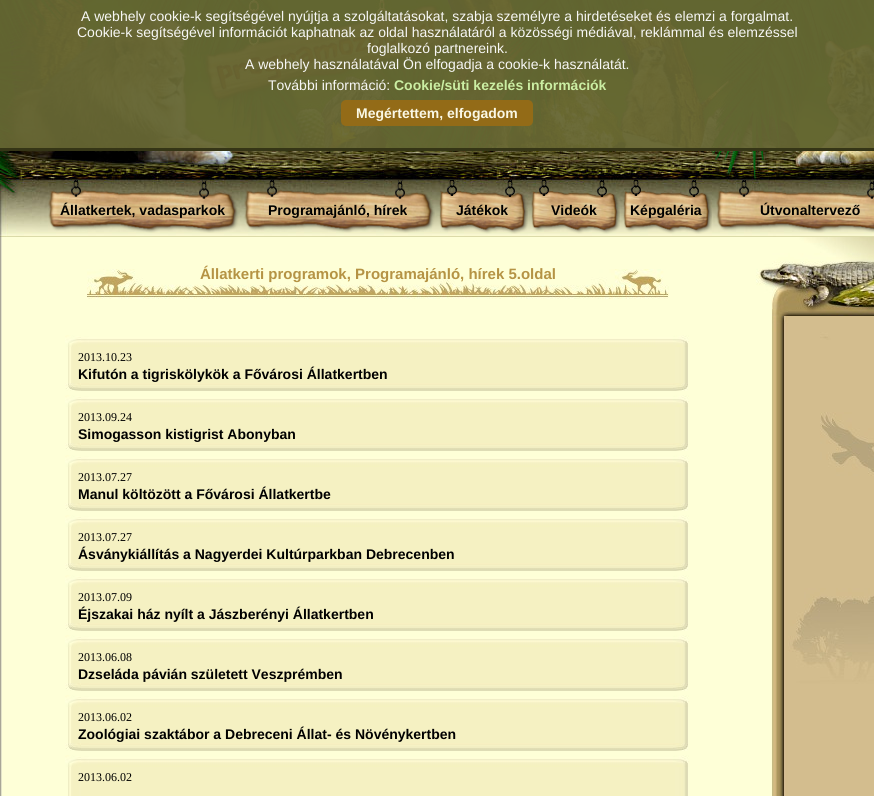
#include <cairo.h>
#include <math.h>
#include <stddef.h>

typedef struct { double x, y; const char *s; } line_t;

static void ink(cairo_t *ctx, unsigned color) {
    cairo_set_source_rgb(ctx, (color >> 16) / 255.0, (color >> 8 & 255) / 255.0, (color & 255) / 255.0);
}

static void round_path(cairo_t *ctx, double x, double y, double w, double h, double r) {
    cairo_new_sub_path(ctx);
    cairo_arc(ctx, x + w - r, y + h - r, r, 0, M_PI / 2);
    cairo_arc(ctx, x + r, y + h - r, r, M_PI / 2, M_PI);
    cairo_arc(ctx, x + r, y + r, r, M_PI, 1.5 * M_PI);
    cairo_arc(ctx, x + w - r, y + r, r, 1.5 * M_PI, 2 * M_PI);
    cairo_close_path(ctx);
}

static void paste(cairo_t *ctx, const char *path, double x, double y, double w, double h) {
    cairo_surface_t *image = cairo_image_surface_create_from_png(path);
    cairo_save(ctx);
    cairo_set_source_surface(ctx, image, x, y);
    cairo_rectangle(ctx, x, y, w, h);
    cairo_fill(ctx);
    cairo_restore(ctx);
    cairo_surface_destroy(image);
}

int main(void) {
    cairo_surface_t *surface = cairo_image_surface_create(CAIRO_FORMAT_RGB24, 874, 796);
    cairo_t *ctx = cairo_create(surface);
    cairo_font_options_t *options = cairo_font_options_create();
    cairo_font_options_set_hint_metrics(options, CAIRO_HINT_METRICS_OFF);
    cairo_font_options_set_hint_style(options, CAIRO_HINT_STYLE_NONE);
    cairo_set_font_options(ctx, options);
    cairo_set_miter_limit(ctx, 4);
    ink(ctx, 0xFEFFD7);
    cairo_paint(ctx);
    paste(ctx, "media/1.png", 0, 0, 874, 237);
    cairo_set_source_rgba(ctx, 0.4, 0.4, 0.2, 0.95);
    cairo_rectangle(ctx, 0, 0, 874, 151);
    cairo_fill(ctx);
    cairo_select_font_face(ctx, "Liberation Sans", CAIRO_FONT_SLANT_NORMAL, CAIRO_FONT_WEIGHT_NORMAL);
    cairo_set_font_size(ctx, 14);
    ink(ctx, 0xF7F7F5);
    {
        static const line_t items[] = {
            {81, 21, "A webhely cookie-k segítségével nyújtja a szolgáltatásokat, szabja személyre a hirdetéseket és elemzi a forgalmat."},
            {77, 37, "Cookie-k segítségével információt kaphatnak az oldal használatáról a közösségi médiával, reklámmal és elemzéssel"},
            {367, 53, "foglalkozó partnereink."},
            {245, 69, "A webhely használatával Ön elfogadja a cookie-k használatát."},
            {268, 90, "További információ:"},
        };
        for (size_t i = 0; i < sizeof items / sizeof *items; i++) {
            cairo_move_to(ctx, items[i].x, items[i].y);
            cairo_show_text(ctx, items[i].s);
        }
    }
    cairo_select_font_face(ctx, "Liberation Sans", CAIRO_FONT_SLANT_NORMAL, CAIRO_FONT_WEIGHT_BOLD);
    ink(ctx, 0xCBEEA3);
    cairo_move_to(ctx, 394, 90);
    cairo_show_text(ctx, "Cookie/süti kezelés információk");
    cairo_set_source_rgba(ctx, 0.584, 0.42, 0.09, 0.95);
    round_path(ctx, 341, 100, 192, 26, 5);
    cairo_fill(ctx);
    ink(ctx, 0xFAF8E5);
    cairo_move_to(ctx, 356, 118);
    cairo_show_text(ctx, "Megértettem, elfogadom");
    cairo_set_source_rgba(ctx, 0.2, 0.2, 0.086, 0.95);
    cairo_rectangle(ctx, 0, 148, 874, 3);
    cairo_fill(ctx);
    paste(ctx, "media/2.png", 48, 180, 191, 53);
    ink(ctx, 0x000000);
    cairo_move_to(ctx, 60, 215);
    cairo_show_text(ctx, "Állatkertek, vadasparkok");
    paste(ctx, "media/3.png", 244, 180, 191, 53);
    cairo_move_to(ctx, 268, 215);
    cairo_show_text(ctx, "Programajánló, hírek");
    paste(ctx, "media/4.png", 439, 180, 89, 54);
    cairo_move_to(ctx, 456, 215);
    cairo_show_text(ctx, "Játékok");
    paste(ctx, "media/5.png", 531, 180, 89, 54);
    cairo_move_to(ctx, 551, 215);
    cairo_show_text(ctx, "Videók");
    paste(ctx, "media/6.png", 623, 180, 89, 54);
    cairo_move_to(ctx, 630, 215);
    cairo_show_text(ctx, "Képgaléria");
    paste(ctx, "media/7.png", 716, 180, 158, 53);
    cairo_move_to(ctx, 760, 215);
    cairo_show_text(ctx, "Útvonaltervező");
    paste(ctx, "media/8.png", 0, 237, 2, 559);
    paste(ctx, "media/9.png", 87, 269, 582, 30);
    cairo_set_font_size(ctx, 15);
    ink(ctx, 0xB59344);
    cairo_move_to(ctx, 200, 279);
    cairo_show_text(ctx, "Állatkerti programok, Programajánló, hírek 5.oldal");
    paste(ctx, "media/10.png", 65, 335, 624, 12);
    paste(ctx, "media/11.png", 68, 347, 620, 36);
    cairo_select_font_face(ctx, "Liberation Serif", CAIRO_FONT_SLANT_NORMAL, CAIRO_FONT_WEIGHT_NORMAL);
    cairo_set_font_size(ctx, 12);
    ink(ctx, 0x000000);
    cairo_move_to(ctx, 78, 361);
    cairo_show_text(ctx, "2013.10.23");
    cairo_select_font_face(ctx, "Liberation Sans", CAIRO_FONT_SLANT_NORMAL, CAIRO_FONT_WEIGHT_BOLD);
    cairo_set_font_size(ctx, 14);
    cairo_move_to(ctx, 78, 379);
    cairo_show_text(ctx, "Kifutón a tigriskölykök a Fővárosi Állatkertben");
    paste(ctx, "media/12.png", 65, 383, 623, 8);
    paste(ctx, "media/10.png", 65, 395, 624, 12);
    paste(ctx, "media/11.png", 68, 407, 620, 36);
    cairo_select_font_face(ctx, "Liberation Serif", CAIRO_FONT_SLANT_NORMAL, CAIRO_FONT_WEIGHT_NORMAL);
    cairo_set_font_size(ctx, 12);
    cairo_move_to(ctx, 78, 421);
    cairo_show_text(ctx, "2013.09.24");
    cairo_select_font_face(ctx, "Liberation Sans", CAIRO_FONT_SLANT_NORMAL, CAIRO_FONT_WEIGHT_BOLD);
    cairo_set_font_size(ctx, 14);
    cairo_move_to(ctx, 78, 439);
    cairo_show_text(ctx, "Simogasson kistigrist Abonyban");
    paste(ctx, "media/12.png", 65, 443, 623, 8);
    paste(ctx, "media/10.png", 65, 455, 624, 12);
    paste(ctx, "media/11.png", 68, 467, 620, 36);
    cairo_select_font_face(ctx, "Liberation Serif", CAIRO_FONT_SLANT_NORMAL, CAIRO_FONT_WEIGHT_NORMAL);
    cairo_set_font_size(ctx, 12);
    cairo_move_to(ctx, 78, 481);
    cairo_show_text(ctx, "2013.07.27");
    cairo_select_font_face(ctx, "Liberation Sans", CAIRO_FONT_SLANT_NORMAL, CAIRO_FONT_WEIGHT_BOLD);
    cairo_set_font_size(ctx, 14);
    cairo_move_to(ctx, 78, 499);
    cairo_show_text(ctx, "Manul költözött a Fővárosi Állatkertbe");
    paste(ctx, "media/12.png", 65, 503, 623, 8);
    paste(ctx, "media/10.png", 65, 515, 624, 12);
    paste(ctx, "media/11.png", 68, 527, 620, 36);
    cairo_select_font_face(ctx, "Liberation Serif", CAIRO_FONT_SLANT_NORMAL, CAIRO_FONT_WEIGHT_NORMAL);
    cairo_set_font_size(ctx, 12);
    cairo_move_to(ctx, 78, 541);
    cairo_show_text(ctx, "2013.07.27");
    cairo_select_font_face(ctx, "Liberation Sans", CAIRO_FONT_SLANT_NORMAL, CAIRO_FONT_WEIGHT_BOLD);
    cairo_set_font_size(ctx, 14);
    cairo_move_to(ctx, 78, 559);
    cairo_show_text(ctx, "Ásványkiállítás a Nagyerdei Kultúrparkban Debrecenben");
    paste(ctx, "media/12.png", 65, 563, 623, 8);
    paste(ctx, "media/10.png", 65, 575, 624, 12);
    paste(ctx, "media/11.png", 68, 587, 620, 36);
    cairo_select_font_face(ctx, "Liberation Serif", CAIRO_FONT_SLANT_NORMAL, CAIRO_FONT_WEIGHT_NORMAL);
    cairo_set_font_size(ctx, 12);
    cairo_move_to(ctx, 78, 601);
    cairo_show_text(ctx, "2013.07.09");
    cairo_select_font_face(ctx, "Liberation Sans", CAIRO_FONT_SLANT_NORMAL, CAIRO_FONT_WEIGHT_BOLD);
    cairo_set_font_size(ctx, 14);
    cairo_move_to(ctx, 78, 619);
    cairo_show_text(ctx, "Éjszakai ház nyílt a Jászberényi Állatkertben");
    paste(ctx, "media/12.png", 65, 623, 623, 8);
    paste(ctx, "media/10.png", 65, 635, 624, 12);
    paste(ctx, "media/11.png", 68, 647, 620, 36);
    cairo_select_font_face(ctx, "Liberation Serif", CAIRO_FONT_SLANT_NORMAL, CAIRO_FONT_WEIGHT_NORMAL);
    cairo_set_font_size(ctx, 12);
    cairo_move_to(ctx, 78, 661);
    cairo_show_text(ctx, "2013.06.08");
    cairo_select_font_face(ctx, "Liberation Sans", CAIRO_FONT_SLANT_NORMAL, CAIRO_FONT_WEIGHT_BOLD);
    cairo_set_font_size(ctx, 14);
    cairo_move_to(ctx, 78, 679);
    cairo_show_text(ctx, "Dzseláda pávián született Veszprémben");
    paste(ctx, "media/12.png", 65, 683, 623, 8);
    paste(ctx, "media/10.png", 65, 695, 624, 12);
    paste(ctx, "media/11.png", 68, 707, 620, 36);
    cairo_select_font_face(ctx, "Liberation Serif", CAIRO_FONT_SLANT_NORMAL, CAIRO_FONT_WEIGHT_NORMAL);
    cairo_set_font_size(ctx, 12);
    cairo_move_to(ctx, 78, 721);
    cairo_show_text(ctx, "2013.06.02");
    cairo_select_font_face(ctx, "Liberation Sans", CAIRO_FONT_SLANT_NORMAL, CAIRO_FONT_WEIGHT_BOLD);
    cairo_set_font_size(ctx, 14);
    cairo_move_to(ctx, 78, 739);
    cairo_show_text(ctx, "Zoológiai szaktábor a Debreceni Állat- és Növénykertben");
    paste(ctx, "media/12.png", 65, 743, 623, 8);
    paste(ctx, "media/10.png", 65, 755, 624, 12);
    paste(ctx, "media/13.png", 68, 767, 620, 29);
    cairo_select_font_face(ctx, "Liberation Serif", CAIRO_FONT_SLANT_NORMAL, CAIRO_FONT_WEIGHT_NORMAL);
    cairo_set_font_size(ctx, 12);
    cairo_move_to(ctx, 78, 781);
    cairo_show_text(ctx, "2013.06.02");
    paste(ctx, "media/14.png", 756, 237, 118, 79);
    paste(ctx, "media/15.png", 771, 316, 103, 480);
    cairo_surface_write_to_png(surface, "image.png");
    cairo_font_options_destroy(options);
    cairo_destroy(ctx);
    cairo_surface_destroy(surface);
    return 0;
}
